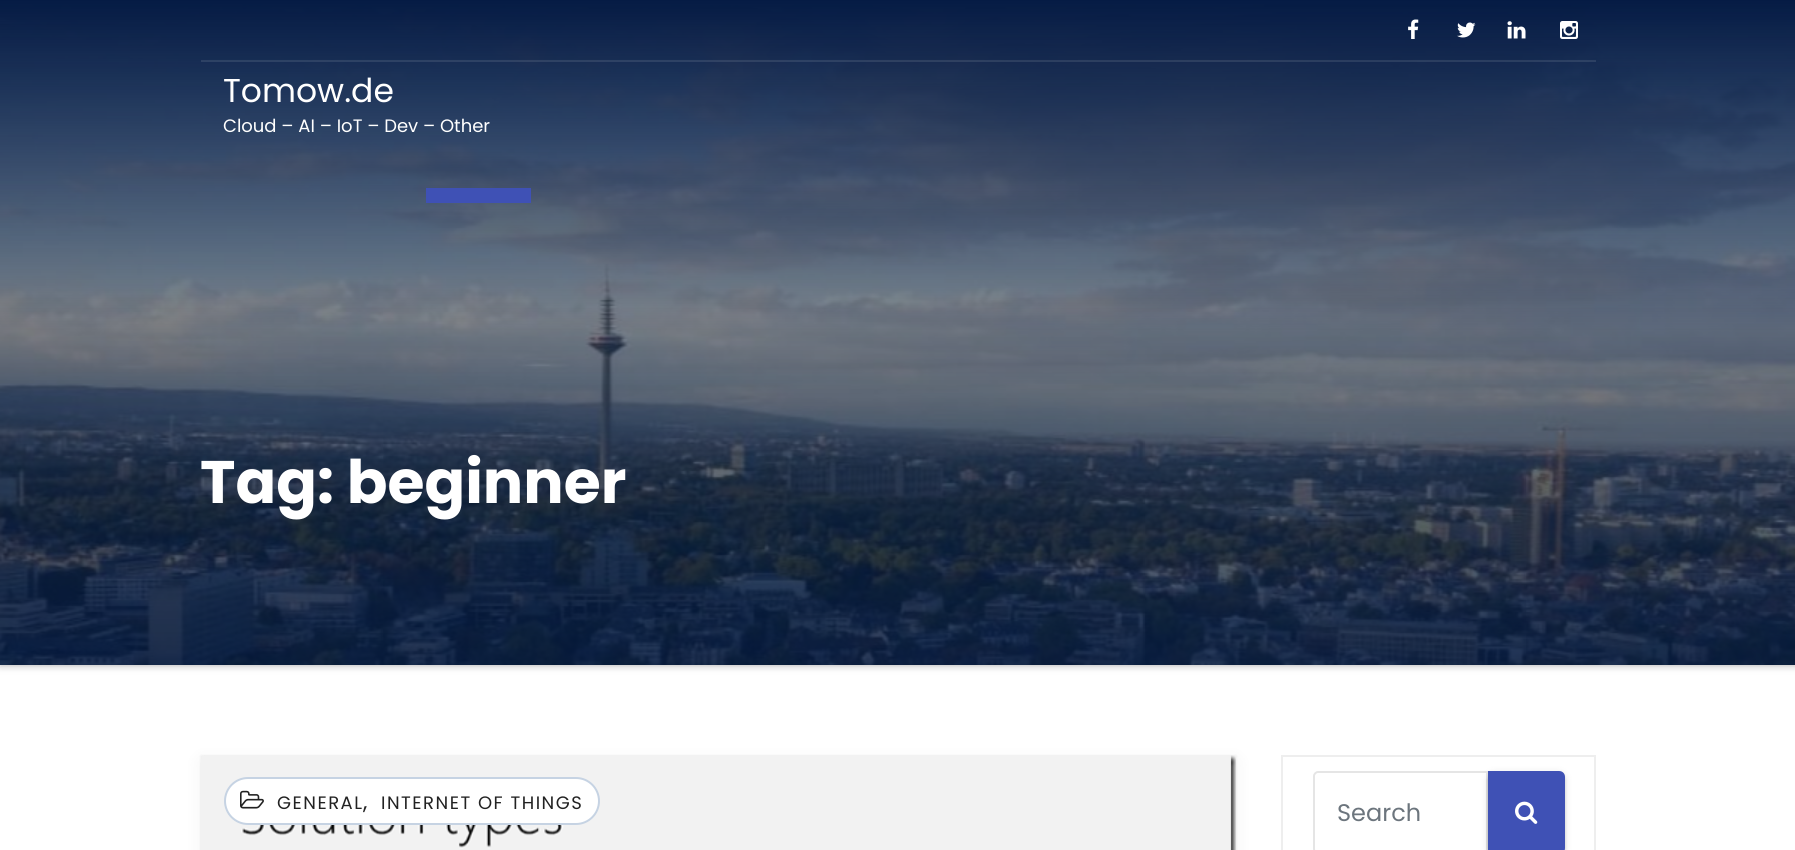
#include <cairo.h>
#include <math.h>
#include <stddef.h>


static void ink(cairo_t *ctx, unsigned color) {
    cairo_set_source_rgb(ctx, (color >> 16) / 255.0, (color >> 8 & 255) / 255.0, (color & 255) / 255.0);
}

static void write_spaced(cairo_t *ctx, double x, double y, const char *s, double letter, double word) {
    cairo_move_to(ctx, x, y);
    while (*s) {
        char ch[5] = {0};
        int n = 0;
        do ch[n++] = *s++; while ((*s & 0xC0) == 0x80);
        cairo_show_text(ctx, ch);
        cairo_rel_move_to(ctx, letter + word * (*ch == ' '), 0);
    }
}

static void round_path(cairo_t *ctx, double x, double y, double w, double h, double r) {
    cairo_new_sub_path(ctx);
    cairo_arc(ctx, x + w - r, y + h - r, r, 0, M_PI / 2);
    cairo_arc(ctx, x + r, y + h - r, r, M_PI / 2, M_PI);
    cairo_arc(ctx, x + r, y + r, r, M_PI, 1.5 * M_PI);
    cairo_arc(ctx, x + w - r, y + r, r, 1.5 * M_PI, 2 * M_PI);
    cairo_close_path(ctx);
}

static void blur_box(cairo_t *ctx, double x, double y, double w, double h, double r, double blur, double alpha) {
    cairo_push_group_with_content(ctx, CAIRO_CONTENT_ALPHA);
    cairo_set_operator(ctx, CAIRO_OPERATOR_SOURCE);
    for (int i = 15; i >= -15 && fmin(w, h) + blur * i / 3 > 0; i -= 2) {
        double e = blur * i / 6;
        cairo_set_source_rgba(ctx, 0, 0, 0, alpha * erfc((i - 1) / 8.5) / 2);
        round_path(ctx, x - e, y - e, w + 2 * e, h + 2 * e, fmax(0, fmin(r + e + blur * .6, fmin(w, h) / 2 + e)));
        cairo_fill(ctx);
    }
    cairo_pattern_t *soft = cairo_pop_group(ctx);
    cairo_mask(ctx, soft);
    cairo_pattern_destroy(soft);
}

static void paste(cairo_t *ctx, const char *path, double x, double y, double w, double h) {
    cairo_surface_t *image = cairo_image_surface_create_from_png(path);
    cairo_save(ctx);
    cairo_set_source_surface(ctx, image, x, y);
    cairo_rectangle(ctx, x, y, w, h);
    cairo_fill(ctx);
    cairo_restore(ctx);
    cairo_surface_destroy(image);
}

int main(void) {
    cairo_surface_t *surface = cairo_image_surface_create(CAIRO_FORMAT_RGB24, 1795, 850);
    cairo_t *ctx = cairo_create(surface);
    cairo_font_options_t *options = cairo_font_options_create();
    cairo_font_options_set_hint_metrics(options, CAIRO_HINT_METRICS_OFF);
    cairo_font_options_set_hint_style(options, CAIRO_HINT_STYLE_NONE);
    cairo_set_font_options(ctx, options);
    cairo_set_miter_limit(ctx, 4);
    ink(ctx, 0xFFFFFF);
    cairo_paint(ctx);
    ink(ctx, 0xAAAAAA);
    blur_box(ctx, 0, 0, 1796, 665, 0, 4, 1);
    paste(ctx, "media/5.png", 0, 0, 1795, 665);
    cairo_set_source_rgba(ctx, 1, 1, 1, 0.1);
    cairo_rectangle(ctx, 201, 60, 1395, 2);
    cairo_fill(ctx);
    paste(ctx, "media/1.png", 1408, 19, 11, 20);
    paste(ctx, "media/2.png", 1457, 22, 19, 16);
    paste(ctx, "media/3.png", 1507, 21, 19, 18);
    paste(ctx, "media/4.png", 1560, 21, 18, 18);
    cairo_select_font_face(ctx, "Poppins", CAIRO_FONT_SLANT_NORMAL, CAIRO_FONT_WEIGHT_NORMAL);
    cairo_set_font_size(ctx, 33);
    ink(ctx, 0xFFFFFF);
    cairo_move_to(ctx, 223, 102);
    cairo_show_text(ctx, "Tomow.de");
    cairo_set_font_size(ctx, 18);
    cairo_move_to(ctx, 223, 132);
    cairo_show_text(ctx, "Cloud – AI – IoT – Dev – Other");
    ink(ctx, 0x3F51B5);
    cairo_rectangle(ctx, 426, 188, 105, 15);
    cairo_fill(ctx);
    cairo_select_font_face(ctx, "Poppins", CAIRO_FONT_SLANT_NORMAL, CAIRO_FONT_WEIGHT_BOLD);
    cairo_set_font_size(ctx, 60);
    ink(ctx, 0xFFFFFF);
    cairo_move_to(ctx, 200, 503);
    cairo_show_text(ctx, "Tag: beginner");
    ink(ctx, 0x000000);
    blur_box(ctx, 201, 761, 1035, 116, 0, 9, 0.05);
    blur_box(ctx, 201, 756, 1035, 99, 0, 1.5, 0.08);
    paste(ctx, "media/6.png", 201, 755, 1035, 95);
    ink(ctx, 0xFFFFFF);
    round_path(ctx, 225, 778, 374, 46, 23);
    cairo_fill_preserve(ctx);
    ink(ctx, 0xC6D3E3);
    cairo_stroke(ctx);
    paste(ctx, "media/7.png", 240, 790, 24, 19);
    cairo_select_font_face(ctx, "Poppins", CAIRO_FONT_SLANT_NORMAL, CAIRO_FONT_WEIGHT_NORMAL);
    cairo_set_font_size(ctx, 18);
    ink(ctx, 0x222222);
    write_spaced(ctx, 277, 809, "GENERAL", 1.5, 0);
    cairo_set_font_size(ctx, 22);
    cairo_move_to(ctx, 363, 809);
    cairo_show_text(ctx, ",");
    cairo_set_font_size(ctx, 18);
    write_spaced(ctx, 381, 809, "INTERNET OF THINGS", 1.5, 0);
    cairo_rectangle(ctx, 1282, 756, 313, 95);
    ink(ctx, 0xEEEEEE);
    cairo_stroke(ctx);
    cairo_new_path(ctx);
    cairo_move_to(ctx, 1318, 772);
    cairo_line_to(ctx, 1487, 772);
    cairo_line_to(ctx, 1487, 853);
    cairo_line_to(ctx, 1318, 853);
    cairo_curve_to(ctx, 1316, 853, 1314, 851, 1314, 849);
    cairo_line_to(ctx, 1314, 776);
    cairo_curve_to(ctx, 1314, 774, 1316, 772, 1318, 772);
    cairo_close_path(ctx);
    ink(ctx, 0xE5E5E5);
    cairo_stroke(ctx);
    cairo_set_font_size(ctx, 24);
    ink(ctx, 0x6C757D);
    cairo_move_to(ctx, 1337, 821);
    cairo_show_text(ctx, "Search");
    ink(ctx, 0x000000);
    blur_box(ctx, 1488, 773, 77, 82, 6, 4, 0.12);
    blur_box(ctx, 1488, 774, 77, 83, 6, 1.5, 0.14);
    ink(ctx, 0x3F51B5);
    cairo_new_path(ctx);
    cairo_move_to(ctx, 1488, 771);
    cairo_line_to(ctx, 1559, 771);
    cairo_curve_to(ctx, 1562.5, 771, 1565, 773.5, 1565, 777);
    cairo_line_to(ctx, 1565, 848);
    cairo_curve_to(ctx, 1565, 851.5, 1562.5, 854, 1559, 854);
    cairo_line_to(ctx, 1488, 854);
    cairo_close_path(ctx);
    cairo_fill(ctx);
    paste(ctx, "media/8.png", 1515, 801, 23, 23);
    cairo_surface_write_to_png(surface, "image.png");
    cairo_font_options_destroy(options);
    cairo_destroy(ctx);
    cairo_surface_destroy(surface);
    return 0;
}
